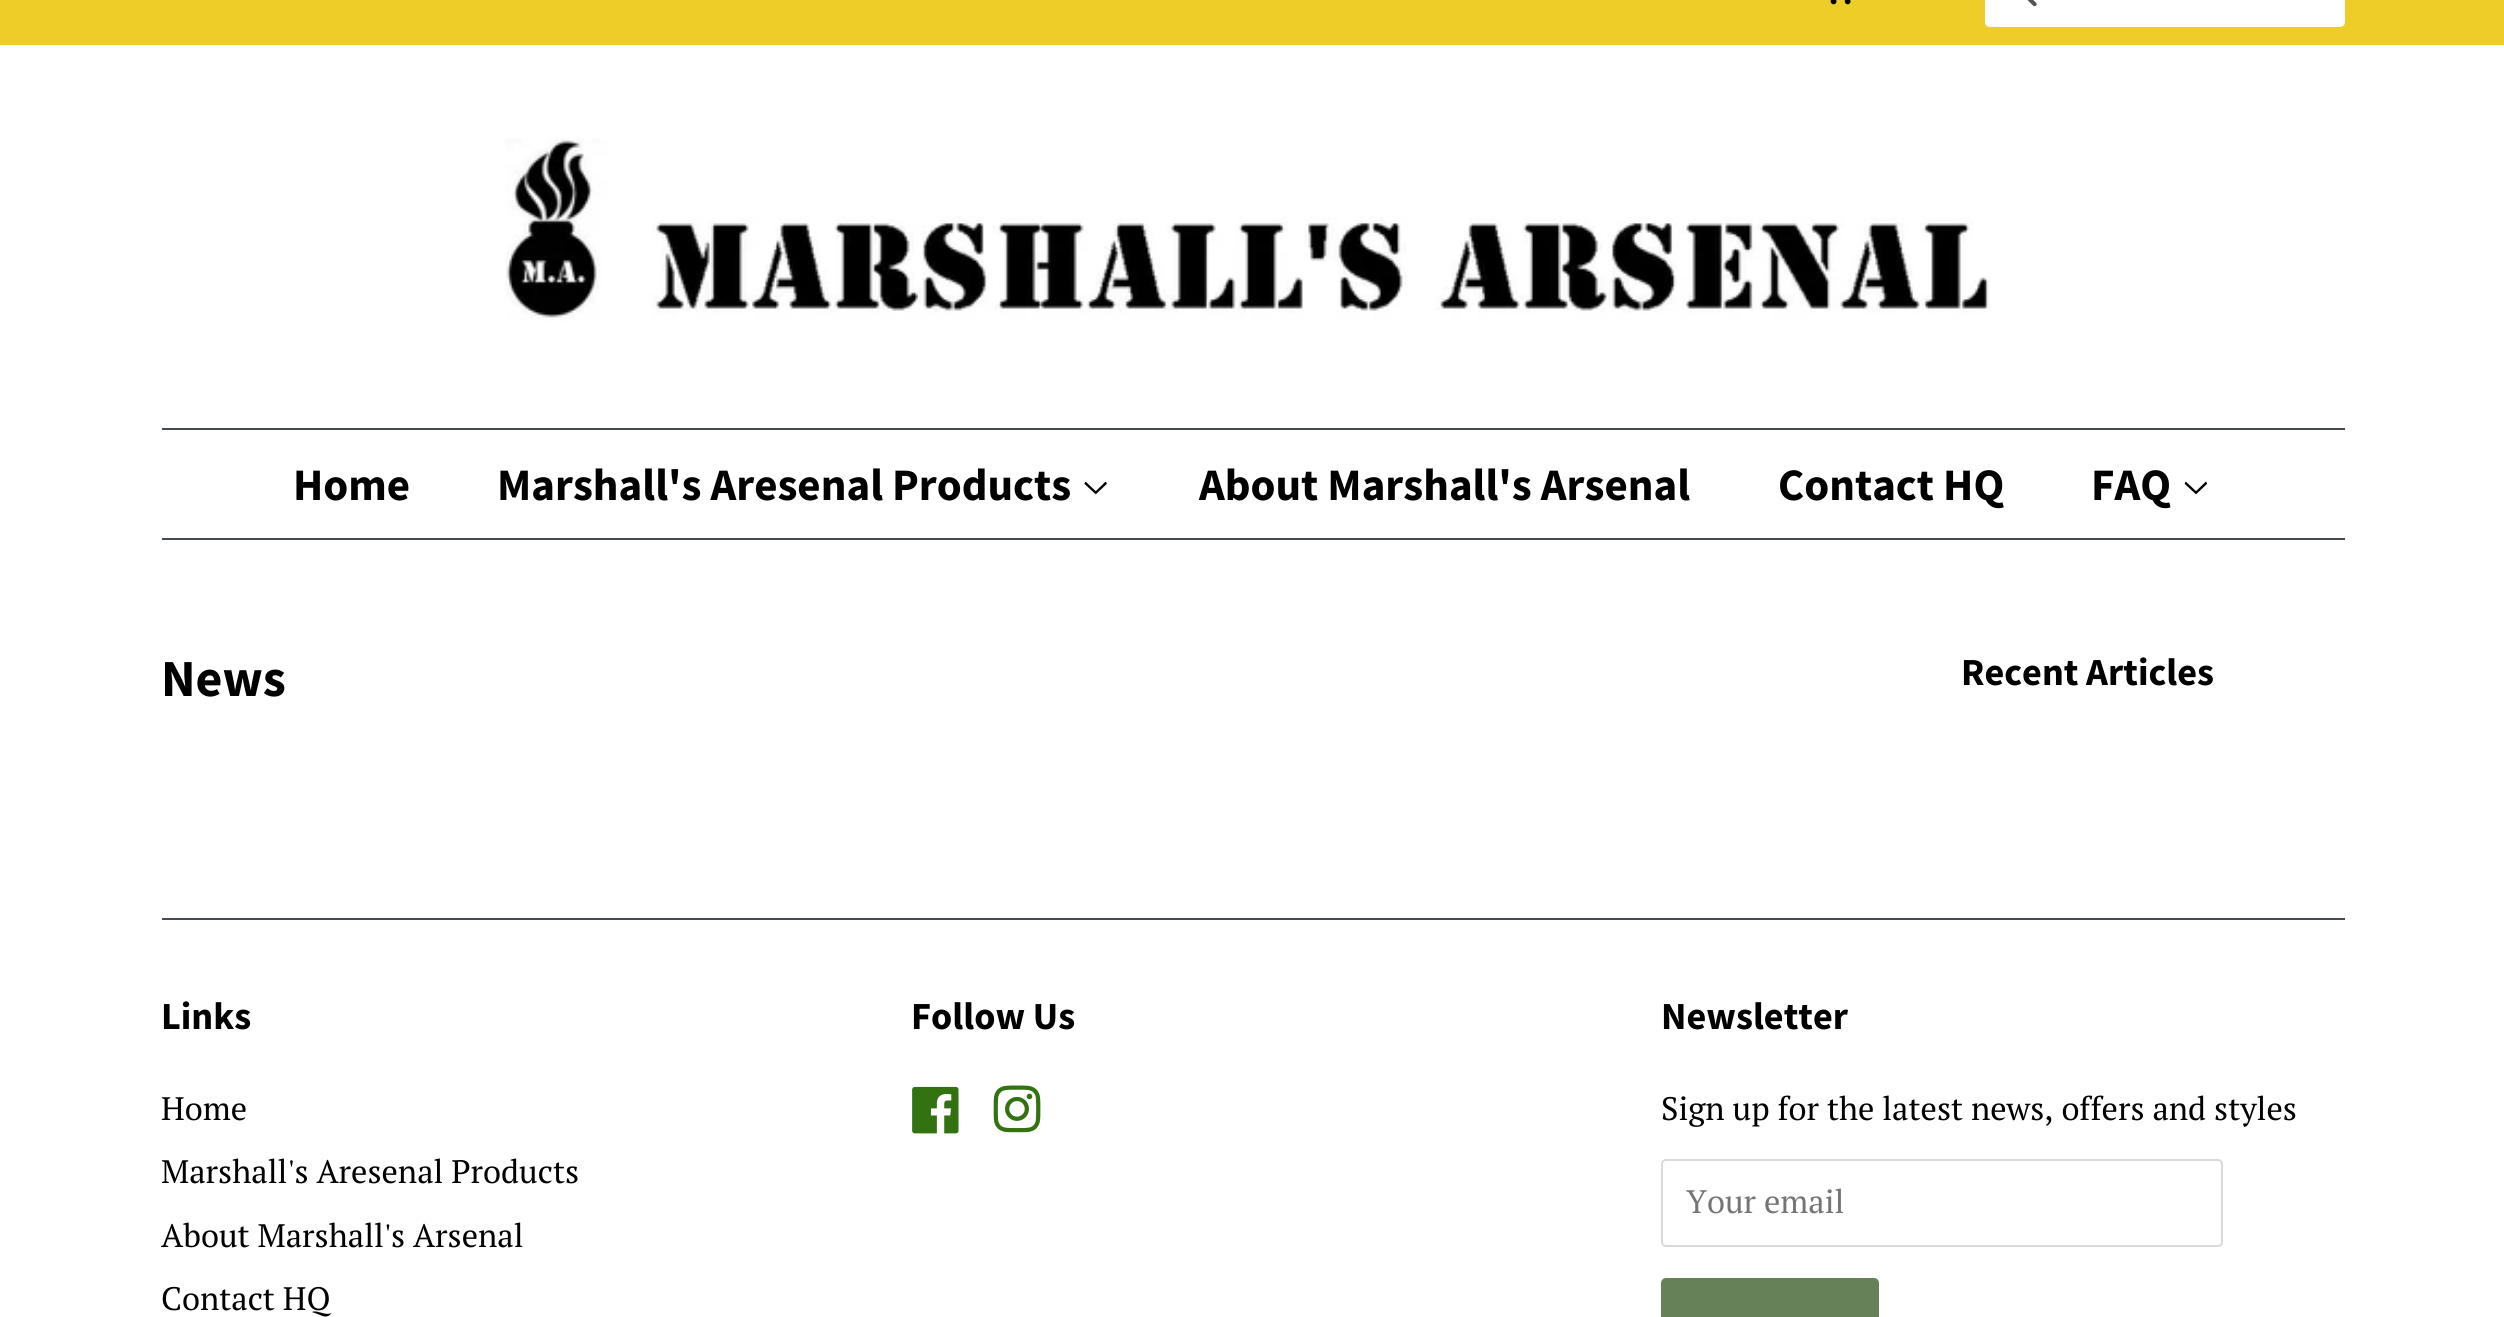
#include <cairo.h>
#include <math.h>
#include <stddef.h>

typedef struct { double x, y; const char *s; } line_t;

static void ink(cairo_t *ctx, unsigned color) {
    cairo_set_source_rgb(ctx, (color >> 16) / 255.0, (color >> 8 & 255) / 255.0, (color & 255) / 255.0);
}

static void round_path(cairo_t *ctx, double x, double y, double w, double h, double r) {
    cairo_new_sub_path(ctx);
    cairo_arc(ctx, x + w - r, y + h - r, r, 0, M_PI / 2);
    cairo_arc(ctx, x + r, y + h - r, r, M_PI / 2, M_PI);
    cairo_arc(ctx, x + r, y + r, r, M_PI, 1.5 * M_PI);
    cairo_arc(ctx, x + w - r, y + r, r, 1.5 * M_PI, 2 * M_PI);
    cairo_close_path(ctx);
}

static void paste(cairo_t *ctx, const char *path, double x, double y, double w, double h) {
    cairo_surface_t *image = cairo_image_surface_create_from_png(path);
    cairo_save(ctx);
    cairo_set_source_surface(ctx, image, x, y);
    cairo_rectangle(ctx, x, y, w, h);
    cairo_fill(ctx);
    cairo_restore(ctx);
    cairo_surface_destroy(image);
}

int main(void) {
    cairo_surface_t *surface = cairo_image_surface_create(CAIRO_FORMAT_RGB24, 2504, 1317);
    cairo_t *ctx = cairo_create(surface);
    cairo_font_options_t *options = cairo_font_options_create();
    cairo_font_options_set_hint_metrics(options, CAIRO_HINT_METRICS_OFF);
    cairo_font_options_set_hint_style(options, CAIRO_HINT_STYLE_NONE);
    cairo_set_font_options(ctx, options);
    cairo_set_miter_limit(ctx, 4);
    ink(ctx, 0xFFFFFF);
    cairo_paint(ctx);
    ink(ctx, 0xEECD28);
    cairo_rectangle(ctx, 0, 0, 2504, 45);
    cairo_fill(ctx);
    paste(ctx, "media/1.png", 1830, 0, 21, 5);
    ink(ctx, 0xFFFFFF);
    round_path(ctx, 1985, -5, 360, 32, 5);
    cairo_fill(ctx);
    paste(ctx, "media/2.png", 2027, 0, 10, 7);
    paste(ctx, "media/3.png", 505, 138, 1485, 183);
    ink(ctx, 0x454B4E);
    cairo_rectangle(ctx, 162, 428, 2183, 2);
    cairo_fill(ctx);
    cairo_rectangle(ctx, 162, 538, 2183, 2);
    cairo_fill(ctx);
    cairo_select_font_face(ctx, "Source Sans Pro", CAIRO_FONT_SLANT_NORMAL, CAIRO_FONT_WEIGHT_BOLD);
    cairo_set_font_size(ctx, 45);
    ink(ctx, 0x000000);
    cairo_move_to(ctx, 293, 500);
    cairo_show_text(ctx, "Home");
    cairo_move_to(ctx, 497, 500);
    cairo_show_text(ctx, "Marshall's Aresenal Products");
    paste(ctx, "media/4.png", 1084, 481, 23, 14);
    {
        static const line_t items[] = {
            {1199, 500, "About Marshall's Arsenal"},
            {1778, 500, "Contact HQ"},
            {2091, 500, "FAQ"},
        };
        for (size_t i = 0; i < sizeof items / sizeof *items; i++) {
            cairo_move_to(ctx, items[i].x, items[i].y);
            cairo_show_text(ctx, items[i].s);
        }
    }
    paste(ctx, "media/5.png", 2184, 481, 23, 14);
    cairo_set_font_size(ctx, 52);
    cairo_move_to(ctx, 161, 696);
    cairo_show_text(ctx, "News");
    cairo_set_font_size(ctx, 38.25);
    cairo_move_to(ctx, 1961, 685);
    cairo_show_text(ctx, "Recent Articles");
    ink(ctx, 0x454B4E);
    cairo_rectangle(ctx, 162, 918, 2183, 2);
    cairo_fill(ctx);
    ink(ctx, 0x000000);
    cairo_move_to(ctx, 161, 1029);
    cairo_show_text(ctx, "Links");
    cairo_select_font_face(ctx, "PT Serif", CAIRO_FONT_SLANT_NORMAL, CAIRO_FONT_WEIGHT_NORMAL);
    cairo_set_font_size(ctx, 32.5);
    {
        static const line_t items[] = {
            {161, 1120, "Home"},
            {161, 1183, "Marshall's Aresenal Products"},
            {161, 1247, "About Marshall's Arsenal"},
            {161, 1310, "Contact HQ"},
        };
        for (size_t i = 0; i < sizeof items / sizeof *items; i++) {
            cairo_move_to(ctx, items[i].x, items[i].y);
            cairo_show_text(ctx, items[i].s);
        }
    }
    cairo_select_font_face(ctx, "Source Sans Pro", CAIRO_FONT_SLANT_NORMAL, CAIRO_FONT_WEIGHT_BOLD);
    cairo_set_font_size(ctx, 38.25);
    cairo_move_to(ctx, 911, 1029);
    cairo_show_text(ctx, "Follow Us");
    paste(ctx, "media/6.png", 912, 1086, 47, 48);
    paste(ctx, "media/7.png", 993, 1085, 48, 48);
    cairo_move_to(ctx, 1661, 1029);
    cairo_show_text(ctx, "Newsletter");
    cairo_select_font_face(ctx, "PT Serif", CAIRO_FONT_SLANT_NORMAL, CAIRO_FONT_WEIGHT_NORMAL);
    cairo_set_font_size(ctx, 32.5);
    cairo_move_to(ctx, 1661, 1120);
    cairo_show_text(ctx, "Sign up for the latest news, offers and styles");
    round_path(ctx, 1662, 1160, 560, 86, 4);
    ink(ctx, 0xD9D9D9);
    cairo_stroke(ctx);
    ink(ctx, 0x757575);
    cairo_move_to(ctx, 1686, 1213);
    cairo_show_text(ctx, "Your email");
    ink(ctx, 0x668157);
    round_path(ctx, 1661, 1278, 218, 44, 5);
    cairo_fill(ctx);
    cairo_surface_write_to_png(surface, "image.png");
    cairo_font_options_destroy(options);
    cairo_destroy(ctx);
    cairo_surface_destroy(surface);
    return 0;
}
